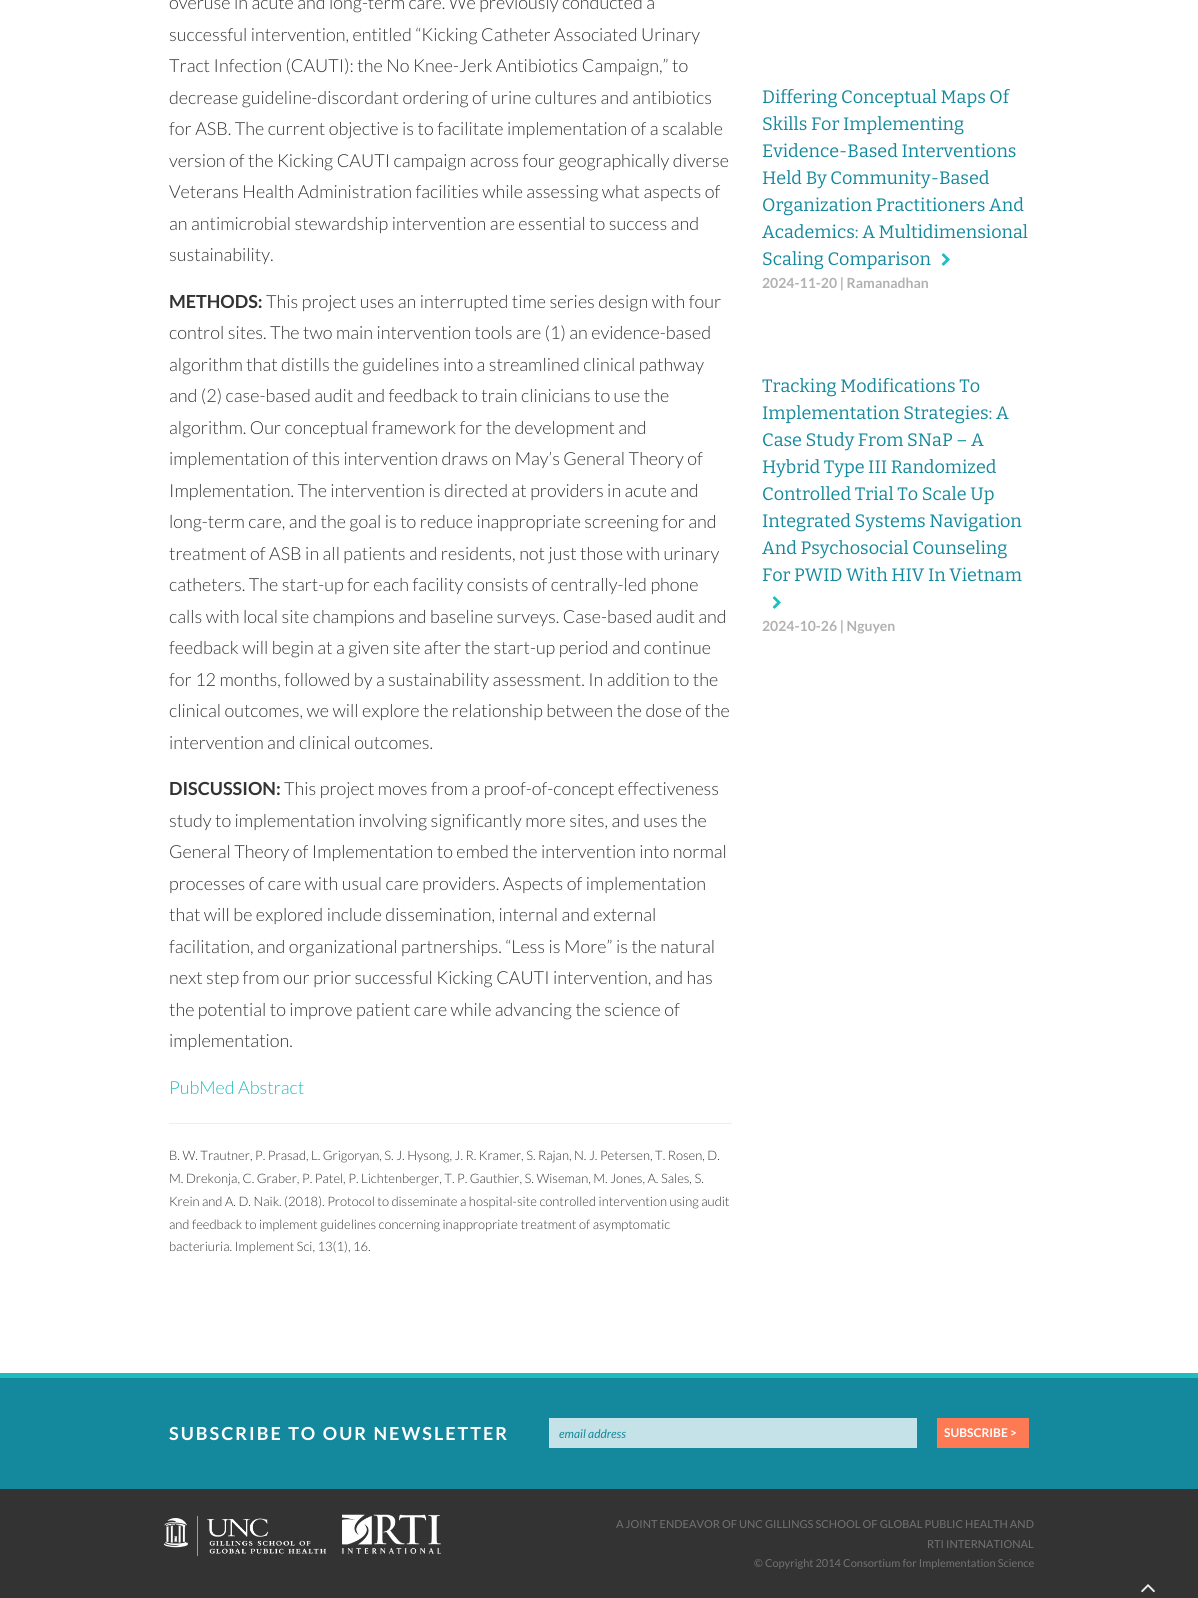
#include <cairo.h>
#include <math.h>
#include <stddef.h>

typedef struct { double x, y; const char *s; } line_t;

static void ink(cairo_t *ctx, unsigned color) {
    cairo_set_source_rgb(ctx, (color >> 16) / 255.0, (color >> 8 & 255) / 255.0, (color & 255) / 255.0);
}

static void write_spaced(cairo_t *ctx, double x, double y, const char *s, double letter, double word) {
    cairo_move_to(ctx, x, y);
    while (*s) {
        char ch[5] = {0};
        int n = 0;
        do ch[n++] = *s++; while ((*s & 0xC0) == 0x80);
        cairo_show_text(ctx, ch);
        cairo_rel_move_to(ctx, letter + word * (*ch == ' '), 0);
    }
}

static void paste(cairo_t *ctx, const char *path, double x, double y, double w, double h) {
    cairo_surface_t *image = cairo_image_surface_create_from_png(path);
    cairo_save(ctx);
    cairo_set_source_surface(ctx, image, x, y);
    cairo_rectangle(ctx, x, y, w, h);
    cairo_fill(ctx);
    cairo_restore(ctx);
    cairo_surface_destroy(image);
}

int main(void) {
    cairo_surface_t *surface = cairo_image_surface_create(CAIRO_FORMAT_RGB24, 1198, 1598);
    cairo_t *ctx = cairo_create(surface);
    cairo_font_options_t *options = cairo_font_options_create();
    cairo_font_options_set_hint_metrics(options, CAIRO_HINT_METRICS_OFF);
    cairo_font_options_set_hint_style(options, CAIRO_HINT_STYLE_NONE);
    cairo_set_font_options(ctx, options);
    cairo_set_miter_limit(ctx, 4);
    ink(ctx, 0xFFFFFF);
    cairo_paint(ctx);
    cairo_select_font_face(ctx, "Lato Light", CAIRO_FONT_SLANT_NORMAL, CAIRO_FONT_WEIGHT_NORMAL);
    cairo_set_font_size(ctx, 18);
    ink(ctx, 0x333333);
    {
        static const line_t items[] = {
            {169, 9, "overuse in acute and long-term care. We previously conducted a"},
            {169, 41, "successful intervention, entitled “Kicking Catheter Associated Urinary"},
            {169, 72, "Tract Infection (CAUTI): the No Knee-Jerk Antibiotics Campaign,” to"},
            {169, 104, "decrease guideline-discordant ordering of urine cultures and antibiotics"},
            {169, 135, "for ASB. The current objective is to facilitate implementation of a scalable"},
            {169, 167, "version of the Kicking CAUTI campaign across four geographically diverse"},
            {169, 198, "Veterans Health Administration facilities while assessing what aspects of"},
            {169, 230, "an antimicrobial stewardship intervention are essential to success and"},
            {169, 261, "sustainability."},
        };
        for (size_t i = 0; i < sizeof items / sizeof *items; i++) {
            cairo_move_to(ctx, items[i].x, items[i].y);
            cairo_show_text(ctx, items[i].s);
        }
    }
    cairo_select_font_face(ctx, "Lato", CAIRO_FONT_SLANT_NORMAL, CAIRO_FONT_WEIGHT_BOLD);
    cairo_move_to(ctx, 169, 308);
    cairo_show_text(ctx, "METHODS:");
    cairo_select_font_face(ctx, "Lato Light", CAIRO_FONT_SLANT_NORMAL, CAIRO_FONT_WEIGHT_NORMAL);
    {
        static const line_t items[] = {
            {266, 308, "This project uses an interrupted time series design with four"},
            {169, 339, "control sites. The two main intervention tools are (1) an evidence-based"},
            {169, 371, "algorithm that distills the guidelines into a streamlined clinical pathway"},
            {169, 402, "and (2) case-based audit and feedback to train clinicians to use the"},
            {169, 434, "algorithm. Our conceptual framework for the development and"},
            {169, 465, "implementation of this intervention draws on May’s General Theory of"},
            {169, 497, "Implementation. The intervention is directed at providers in acute and"},
            {169, 528, "long-term care, and the goal is to reduce inappropriate screening for and"},
            {169, 560, "treatment of ASB in all patients and residents, not just those with urinary"},
            {169, 591, "catheters. The start-up for each facility consists of centrally-led phone"},
            {169, 623, "calls with local site champions and baseline surveys. Case-based audit and"},
            {169, 654, "feedback will begin at a given site after the start-up period and continue"},
            {169, 686, "for 12 months, followed by a sustainability assessment. In addition to the"},
            {169, 717, "clinical outcomes, we will explore the relationship between the dose of the"},
            {169, 749, "intervention and clinical outcomes."},
        };
        for (size_t i = 0; i < sizeof items / sizeof *items; i++) {
            cairo_move_to(ctx, items[i].x, items[i].y);
            cairo_show_text(ctx, items[i].s);
        }
    }
    cairo_select_font_face(ctx, "Lato", CAIRO_FONT_SLANT_NORMAL, CAIRO_FONT_WEIGHT_BOLD);
    cairo_move_to(ctx, 169, 795);
    cairo_show_text(ctx, "DISCUSSION:");
    cairo_select_font_face(ctx, "Lato Light", CAIRO_FONT_SLANT_NORMAL, CAIRO_FONT_WEIGHT_NORMAL);
    {
        static const line_t items[] = {
            {284, 795, "This project moves from a proof-of-concept effectiveness"},
            {169, 827, "study to implementation involving significantly more sites, and uses the"},
            {169, 858, "General Theory of Implementation to embed the intervention into normal"},
            {169, 890, "processes of care with usual care providers. Aspects of implementation"},
            {169, 921, "that will be explored include dissemination, internal and external"},
            {169, 953, "facilitation, and organizational partnerships. “Less is More” is the natural"},
            {169, 984, "next step from our prior successful Kicking CAUTI intervention, and has"},
            {169, 1016, "the potential to improve patient care while advancing the science of"},
            {169, 1047, "implementation."},
        };
        for (size_t i = 0; i < sizeof items / sizeof *items; i++) {
            cairo_move_to(ctx, items[i].x, items[i].y);
            cairo_show_text(ctx, items[i].s);
        }
    }
    ink(ctx, 0x1EBEBF);
    cairo_move_to(ctx, 169, 1094);
    cairo_show_text(ctx, "PubMed Abstract");
    ink(ctx, 0xEEEEEE);
    cairo_rectangle(ctx, 169, 1123, 563, 1);
    cairo_fill(ctx);
    cairo_set_font_size(ctx, 13);
    ink(ctx, 0x333333);
    {
        static const line_t items[] = {
            {169, 1160, "B. W. Trautner, P. Prasad, L. Grigoryan, S. J. Hysong, J. R. Kramer, S. Rajan, N. J. Petersen, T. Rosen, D."},
            {169, 1183, "M. Drekonja, C. Graber, P. Patel, P. Lichtenberger, T. P. Gauthier, S. Wiseman, M. Jones, A. Sales, S."},
            {169, 1206, "Krein and A. D. Naik. (2018). Protocol to disseminate a hospital-site controlled intervention using audit"},
            {169, 1229, "and feedback to implement guidelines concerning inappropriate treatment of asymptomatic"},
            {169, 1251, "bacteriuria. Implement Sci, 13(1), 16."},
        };
        for (size_t i = 0; i < sizeof items / sizeof *items; i++) {
            cairo_move_to(ctx, items[i].x, items[i].y);
            cairo_show_text(ctx, items[i].s);
        }
    }
    cairo_select_font_face(ctx, "Bitter", CAIRO_FONT_SLANT_NORMAL, CAIRO_FONT_WEIGHT_NORMAL);
    cairo_set_font_size(ctx, 18);
    ink(ctx, 0x14899D);
    {
        static const line_t items[] = {
            {762, 103, "Differing Conceptual Maps Of"},
            {762, 130, "Skills For Implementing"},
            {762, 157, "Evidence-Based Interventions"},
            {762, 184, "Held By Community-Based"},
            {762, 211, "Organization Practitioners And"},
            {762, 238, "Academics: A Multidimensional"},
            {762, 265, "Scaling Comparison"},
        };
        for (size_t i = 0; i < sizeof items / sizeof *items; i++) {
            cairo_move_to(ctx, items[i].x, items[i].y);
            cairo_show_text(ctx, items[i].s);
        }
    }
    paste(ctx, "media/1.png", 941, 253, 9, 13);
    cairo_select_font_face(ctx, "Lato", CAIRO_FONT_SLANT_NORMAL, CAIRO_FONT_WEIGHT_BOLD);
    cairo_set_font_size(ctx, 14);
    ink(ctx, 0xB1B1B1);
    cairo_move_to(ctx, 762, 288);
    cairo_show_text(ctx, "2024-11-20 | Ramanadhan");
    cairo_select_font_face(ctx, "Bitter", CAIRO_FONT_SLANT_NORMAL, CAIRO_FONT_WEIGHT_NORMAL);
    cairo_set_font_size(ctx, 18);
    ink(ctx, 0x14899D);
    {
        static const line_t items[] = {
            {762, 392, "Tracking Modifications To"},
            {762, 419, "Implementation Strategies: A"},
            {762, 446, "Case Study From SNaP – A"},
            {762, 473, "Hybrid Type III Randomized"},
            {762, 500, "Controlled Trial To Scale Up"},
            {762, 527, "Integrated Systems Navigation"},
            {762, 554, "And Psychosocial Counseling"},
            {762, 581, "For PWID With HIV In Vietnam"},
        };
        for (size_t i = 0; i < sizeof items / sizeof *items; i++) {
            cairo_move_to(ctx, items[i].x, items[i].y);
            cairo_show_text(ctx, items[i].s);
        }
    }
    paste(ctx, "media/1.png", 772, 596, 9, 13);
    cairo_select_font_face(ctx, "Lato", CAIRO_FONT_SLANT_NORMAL, CAIRO_FONT_WEIGHT_BOLD);
    cairo_set_font_size(ctx, 14);
    ink(ctx, 0xB1B1B1);
    cairo_move_to(ctx, 762, 631);
    cairo_show_text(ctx, "2024-10-26 | Nguyen");
    ink(ctx, 0x14899D);
    cairo_rectangle(ctx, 0, 1378, 1198, 111);
    cairo_fill(ctx);
    ink(ctx, 0x1EBEBF);
    cairo_rectangle(ctx, 0, 1373, 1198, 5);
    cairo_fill(ctx);
    cairo_set_font_size(ctx, 18);
    ink(ctx, 0xFFFFFF);
    write_spaced(ctx, 169, 1440, "SUBSCRIBE TO OUR NEWSLETTER", 2, 0);
    ink(ctx, 0xC4E2E7);
    cairo_rectangle(ctx, 549, 1418, 368, 30);
    cairo_fill(ctx);
    cairo_select_font_face(ctx, "Lato", CAIRO_FONT_SLANT_ITALIC, CAIRO_FONT_WEIGHT_NORMAL);
    cairo_set_font_size(ctx, 12);
    ink(ctx, 0x14899D);
    cairo_move_to(ctx, 559, 1438);
    cairo_show_text(ctx, "email address");
    ink(ctx, 0xFD7A54);
    cairo_rectangle(ctx, 937, 1418, 92, 30);
    cairo_fill(ctx);
    cairo_select_font_face(ctx, "Lato", CAIRO_FONT_SLANT_NORMAL, CAIRO_FONT_WEIGHT_BOLD);
    ink(ctx, 0xFFFFFF);
    cairo_move_to(ctx, 944, 1437);
    cairo_show_text(ctx, "SUBSCRIBE >");
    ink(ctx, 0x333333);
    cairo_rectangle(ctx, 0, 1489, 1198, 109);
    cairo_fill(ctx);
    paste(ctx, "media/2.png", 164, 1516, 162, 40);
    paste(ctx, "media/3.png", 342, 1514, 99, 40);
    cairo_select_font_face(ctx, "Lato", CAIRO_FONT_SLANT_NORMAL, CAIRO_FONT_WEIGHT_NORMAL);
    cairo_set_font_size(ctx, 11);
    ink(ctx, 0x727272);
    {
        static const line_t items[] = {
            {616, 1528, "A JOINT ENDEAVOR OF UNC GILLINGS SCHOOL OF GLOBAL PUBLIC HEALTH AND"},
            {927, 1548, "RTI INTERNATIONAL"},
            {754, 1567, "© Copyright 2014 Consortium for Implementation Science"},
        };
        for (size_t i = 0; i < sizeof items / sizeof *items; i++) {
            cairo_move_to(ctx, items[i].x, items[i].y);
            cairo_show_text(ctx, items[i].s);
        }
    }
    paste(ctx, "media/4.png", 1141, 1584, 14, 9);
    cairo_surface_write_to_png(surface, "image.png");
    cairo_font_options_destroy(options);
    cairo_destroy(ctx);
    cairo_surface_destroy(surface);
    return 0;
}
